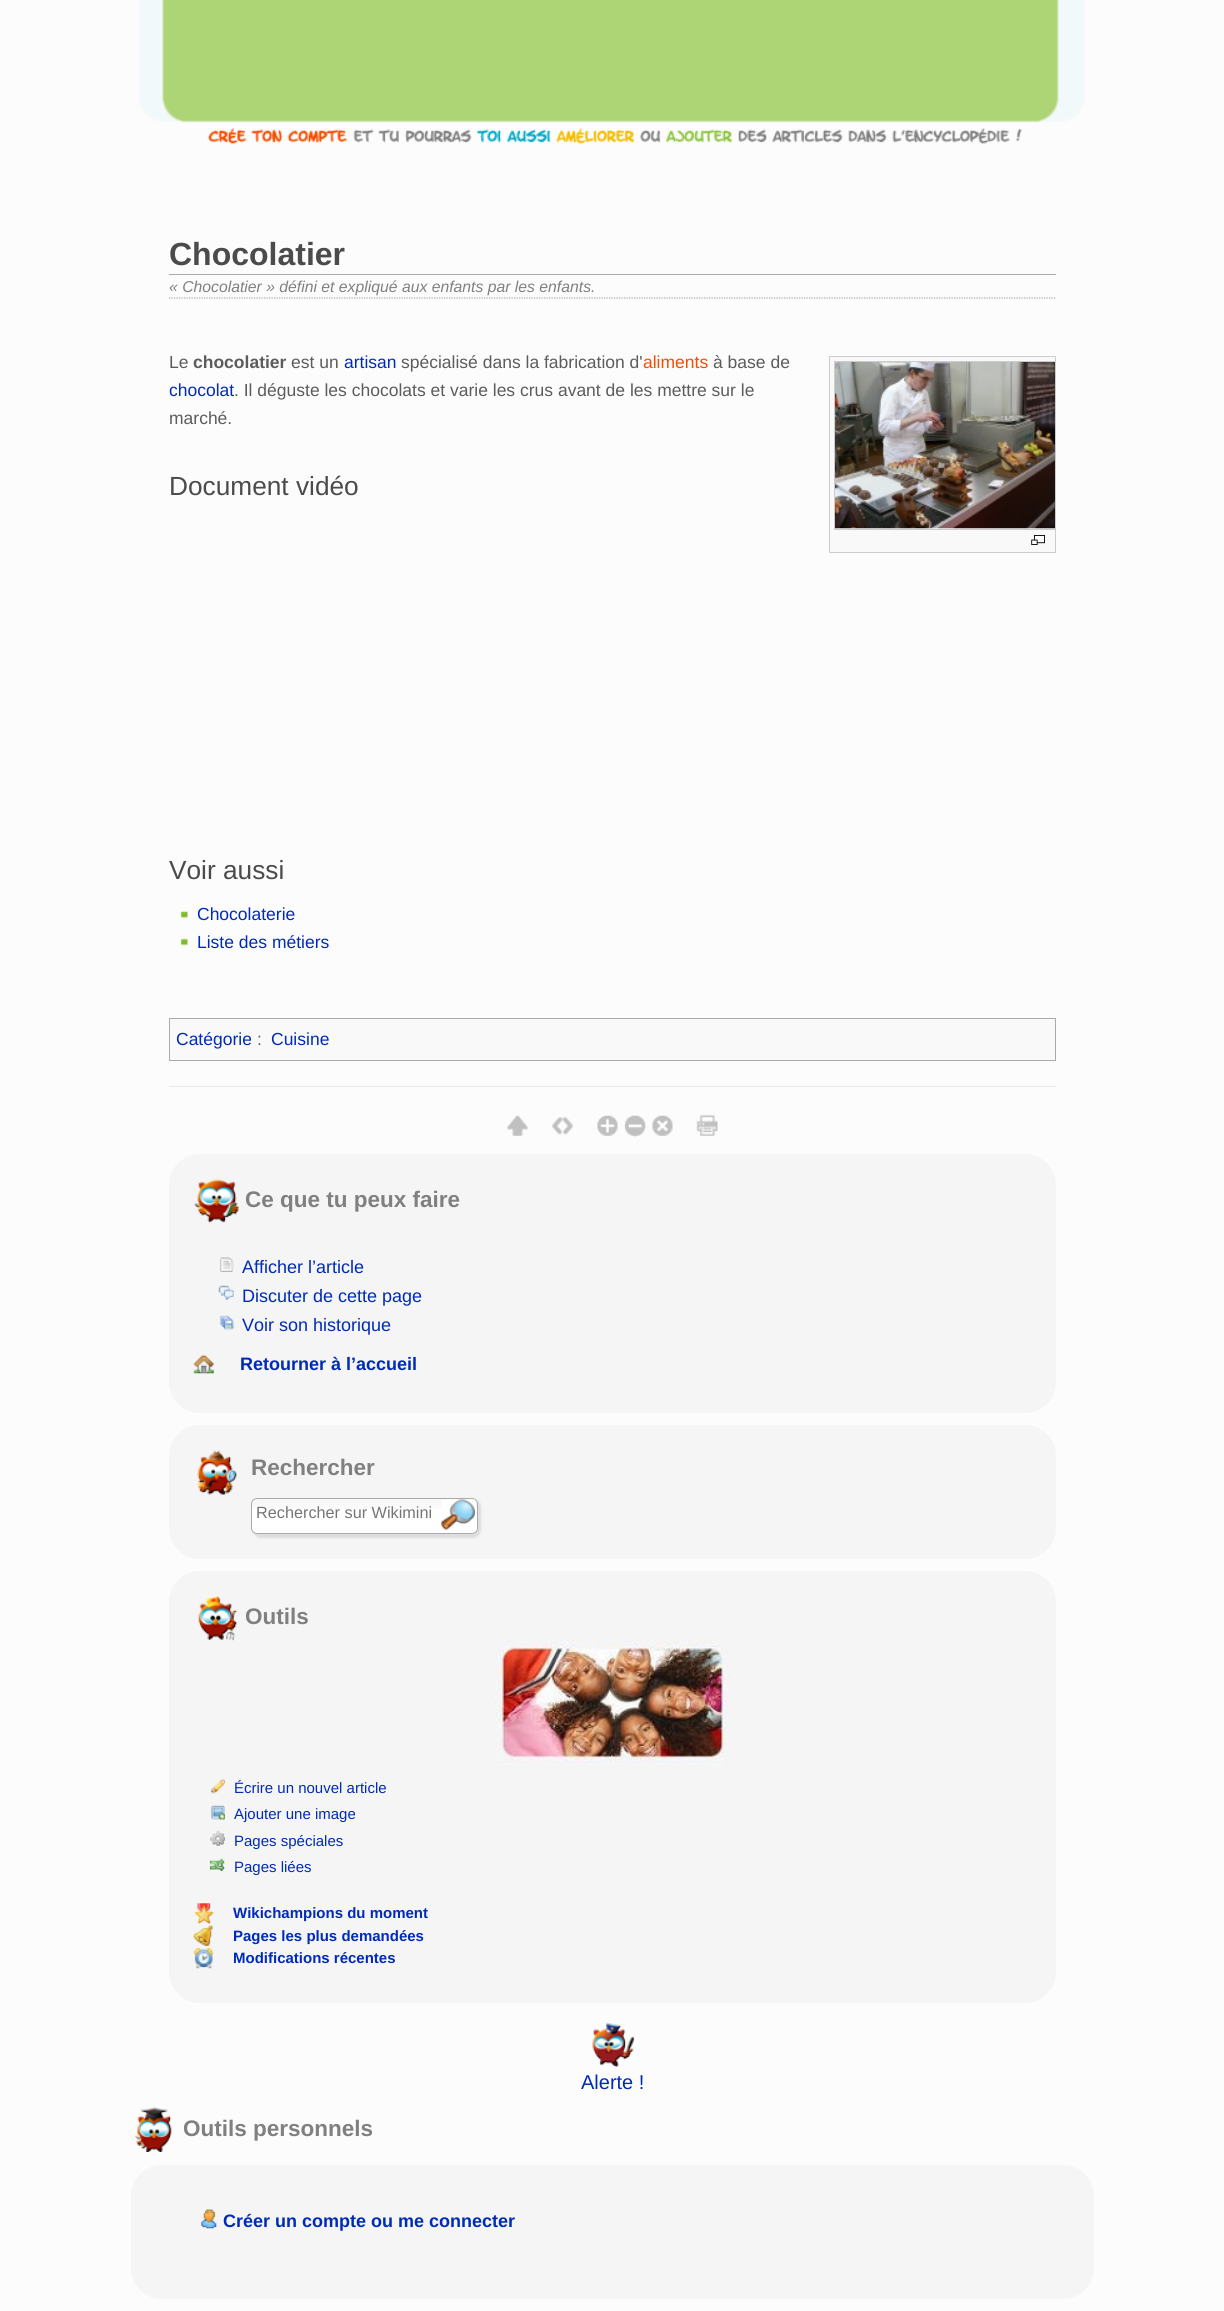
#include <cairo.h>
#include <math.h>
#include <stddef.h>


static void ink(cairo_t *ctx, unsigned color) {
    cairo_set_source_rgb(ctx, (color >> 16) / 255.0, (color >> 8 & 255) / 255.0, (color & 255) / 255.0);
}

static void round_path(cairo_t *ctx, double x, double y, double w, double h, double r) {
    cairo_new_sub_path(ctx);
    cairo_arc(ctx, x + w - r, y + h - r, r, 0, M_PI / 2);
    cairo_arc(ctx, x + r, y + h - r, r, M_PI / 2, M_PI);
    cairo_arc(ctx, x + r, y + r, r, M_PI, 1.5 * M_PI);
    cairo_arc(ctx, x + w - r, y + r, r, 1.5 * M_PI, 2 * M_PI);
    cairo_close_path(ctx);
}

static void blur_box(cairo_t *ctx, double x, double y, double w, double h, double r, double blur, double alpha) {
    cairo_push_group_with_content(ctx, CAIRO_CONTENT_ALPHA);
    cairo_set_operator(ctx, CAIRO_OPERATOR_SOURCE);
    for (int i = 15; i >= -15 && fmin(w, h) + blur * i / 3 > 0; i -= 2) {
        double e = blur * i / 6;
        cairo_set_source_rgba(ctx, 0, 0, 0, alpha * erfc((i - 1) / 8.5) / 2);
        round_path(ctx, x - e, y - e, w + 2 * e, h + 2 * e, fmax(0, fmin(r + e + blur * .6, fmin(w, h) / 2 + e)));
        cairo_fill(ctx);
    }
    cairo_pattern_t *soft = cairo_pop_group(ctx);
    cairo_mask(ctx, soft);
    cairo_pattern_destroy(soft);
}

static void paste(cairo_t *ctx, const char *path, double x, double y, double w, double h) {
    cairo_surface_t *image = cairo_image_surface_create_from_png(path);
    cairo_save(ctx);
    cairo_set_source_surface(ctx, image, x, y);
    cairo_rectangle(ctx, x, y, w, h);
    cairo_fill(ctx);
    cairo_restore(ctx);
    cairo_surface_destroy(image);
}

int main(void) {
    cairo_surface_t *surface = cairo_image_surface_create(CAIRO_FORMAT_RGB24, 1224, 2311);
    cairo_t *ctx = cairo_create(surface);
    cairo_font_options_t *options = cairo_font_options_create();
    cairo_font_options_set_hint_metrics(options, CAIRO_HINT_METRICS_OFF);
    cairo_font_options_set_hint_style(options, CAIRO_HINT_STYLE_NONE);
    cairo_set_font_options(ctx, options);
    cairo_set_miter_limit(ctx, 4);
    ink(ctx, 0xFCFCFC);
    cairo_paint(ctx);
    paste(ctx, "media/1.png", 139, 0, 946, 123);
    paste(ctx, "media/2.png", 208, 128, 814, 16);
    ink(ctx, 0xAAAAAA);
    cairo_rectangle(ctx, 169, 274, 887, 1);
    cairo_fill(ctx);
    cairo_select_font_face(ctx, "Liberation Sans", CAIRO_FONT_SLANT_NORMAL, CAIRO_FONT_WEIGHT_BOLD);
    cairo_set_font_size(ctx, 32);
    ink(ctx, 0x4B4B4B);
    cairo_move_to(ctx, 169, 265);
    cairo_show_text(ctx, "Chocolatier");
    ink(ctx, 0xE9E9E9);
    cairo_rectangle(ctx, 169, 1086, 887, 1);
    cairo_fill(ctx);
    cairo_new_path(ctx);
    cairo_move_to(ctx, 169, 298);
    cairo_line_to(ctx, 1056, 298);
    ink(ctx, 0xAAAAAA);
    cairo_set_line_width(ctx, 1.2);
    cairo_set_dash(ctx, (double[]){1.25, 1.25}, 2, 0);
    cairo_stroke(ctx);
    cairo_select_font_face(ctx, "Liberation Sans", CAIRO_FONT_SLANT_ITALIC, CAIRO_FONT_WEIGHT_NORMAL);
    cairo_set_font_size(ctx, 15.75);
    ink(ctx, 0x808080);
    cairo_move_to(ctx, 169, 292);
    cairo_show_text(ctx, "« Chocolatier » défini et expliqué aux enfants par les enfants.");
    cairo_select_font_face(ctx, "Liberation Sans", CAIRO_FONT_SLANT_NORMAL, CAIRO_FONT_WEIGHT_NORMAL);
    cairo_set_font_size(ctx, 17.5);
    ink(ctx, 0x5C5C5C);
    cairo_move_to(ctx, 169, 368);
    cairo_show_text(ctx, "Le");
    cairo_select_font_face(ctx, "Liberation Sans", CAIRO_FONT_SLANT_NORMAL, CAIRO_FONT_WEIGHT_BOLD);
    cairo_move_to(ctx, 193, 368);
    cairo_show_text(ctx, "chocolatier");
    cairo_select_font_face(ctx, "Liberation Sans", CAIRO_FONT_SLANT_NORMAL, CAIRO_FONT_WEIGHT_NORMAL);
    cairo_move_to(ctx, 291, 368);
    cairo_show_text(ctx, "est un");
    ink(ctx, 0x002BB8);
    cairo_move_to(ctx, 344, 368);
    cairo_show_text(ctx, "artisan");
    ink(ctx, 0x5C5C5C);
    cairo_move_to(ctx, 401, 368);
    cairo_show_text(ctx, "spécialisé dans la fabrication d'");
    ink(ctx, 0xF54D00);
    cairo_move_to(ctx, 643, 368);
    cairo_show_text(ctx, "aliments");
    ink(ctx, 0x5C5C5C);
    cairo_move_to(ctx, 713, 368);
    cairo_show_text(ctx, "à base de");
    ink(ctx, 0xF9F9F9);
    cairo_rectangle(ctx, 829.5, 356.5, 226, 196);
    cairo_fill_preserve(ctx);
    ink(ctx, 0xCCCCCC);
    cairo_set_line_width(ctx, 1);
    cairo_set_dash(ctx, NULL, 0, 0);
    cairo_stroke(ctx);
    cairo_save(ctx);
    cairo_rectangle(ctx, 830, 358, 225, 193);
    cairo_clip(ctx);
    cairo_rectangle(ctx, 834.5, 361.5, 224, 168);
    cairo_stroke(ctx);
    cairo_restore(ctx);
    paste(ctx, "media/3.png", 835, 362, 220, 167);
    paste(ctx, "media/4.png", 1031, 535, 14, 10);
    ink(ctx, 0x002BB8);
    cairo_move_to(ctx, 169, 396);
    cairo_show_text(ctx, "chocolat");
    ink(ctx, 0x5C5C5C);
    cairo_move_to(ctx, 234, 396);
    cairo_show_text(ctx, ". Il déguste les chocolats et varie les crus avant de les mettre sur le");
    cairo_move_to(ctx, 169, 424);
    cairo_show_text(ctx, "marché.");
    cairo_set_font_size(ctx, 26.25);
    ink(ctx, 0x4B4B4B);
    cairo_move_to(ctx, 169, 495);
    cairo_show_text(ctx, "Document vidéo");
    cairo_move_to(ctx, 169, 879);
    cairo_show_text(ctx, "Voir aussi");
    paste(ctx, "media/5.png", 181, 910, 7, 9);
    cairo_set_font_size(ctx, 17.5);
    ink(ctx, 0x002BB8);
    cairo_move_to(ctx, 197, 920);
    cairo_show_text(ctx, "Chocolaterie");
    paste(ctx, "media/6.png", 181, 938, 7, 8);
    cairo_move_to(ctx, 197, 948);
    cairo_show_text(ctx, "Liste des métiers");
    ink(ctx, 0xF9F9F9);
    cairo_rectangle(ctx, 169.5, 1018.5, 886, 42);
    cairo_fill_preserve(ctx);
    ink(ctx, 0xAAAAAA);
    cairo_stroke(ctx);
    ink(ctx, 0x002BB8);
    cairo_move_to(ctx, 176, 1045);
    cairo_show_text(ctx, "Catégorie");
    ink(ctx, 0x5C5C5C);
    cairo_move_to(ctx, 257, 1045);
    cairo_show_text(ctx, ":");
    ink(ctx, 0x002BB8);
    cairo_move_to(ctx, 271, 1045);
    cairo_show_text(ctx, "Cuisine");
    paste(ctx, "media/7.png", 507, 1115, 21, 21);
    paste(ctx, "media/8.png", 552, 1117, 21, 18);
    paste(ctx, "media/9.png", 597, 1115, 21, 21);
    paste(ctx, "media/10.png", 624, 1115, 22, 22);
    paste(ctx, "media/11.png", 652, 1115, 21, 21);
    paste(ctx, "media/12.png", 696, 1114, 22, 22);
    ink(ctx, 0xF5F5F5);
    round_path(ctx, 169, 1154, 887, 259, 31);
    cairo_fill(ctx);
    paste(ctx, "media/13.png", 194, 1179, 45, 44);
    cairo_select_font_face(ctx, "Liberation Sans", CAIRO_FONT_SLANT_NORMAL, CAIRO_FONT_WEIGHT_BOLD);
    cairo_set_font_size(ctx, 22.5);
    ink(ctx, 0x808080);
    cairo_move_to(ctx, 245, 1207);
    cairo_show_text(ctx, "Ce que tu peux faire");
    paste(ctx, "media/14.png", 220, 1257, 14, 15);
    cairo_select_font_face(ctx, "Liberation Sans", CAIRO_FONT_SLANT_NORMAL, CAIRO_FONT_WEIGHT_NORMAL);
    cairo_set_font_size(ctx, 18);
    ink(ctx, 0x002BB8);
    cairo_move_to(ctx, 242, 1273);
    cairo_show_text(ctx, "Afficher l’article");
    paste(ctx, "media/15.png", 218, 1285, 16, 16);
    cairo_move_to(ctx, 242, 1302);
    cairo_show_text(ctx, "Discuter de cette page");
    paste(ctx, "media/16.png", 219, 1315, 15, 15);
    cairo_move_to(ctx, 242, 1331);
    cairo_show_text(ctx, "Voir son historique");
    paste(ctx, "media/17.png", 193, 1354, 21, 20);
    cairo_select_font_face(ctx, "Liberation Sans", CAIRO_FONT_SLANT_NORMAL, CAIRO_FONT_WEIGHT_BOLD);
    cairo_move_to(ctx, 240, 1370);
    cairo_show_text(ctx, "Retourner à l’accueil");
    ink(ctx, 0xF5F5F5);
    round_path(ctx, 169, 1425, 887, 134, 31);
    cairo_fill(ctx);
    paste(ctx, "media/18.png", 197, 1450, 40, 45);
    cairo_set_font_size(ctx, 22.5);
    ink(ctx, 0x808080);
    cairo_move_to(ctx, 251, 1475);
    cairo_show_text(ctx, "Rechercher");
    ink(ctx, 0xDDDDDD);
    blur_box(ctx, 253, 1499, 228, 39, 8, 1, 1);
    ink(ctx, 0xFFFFFF);
    round_path(ctx, 251, 1498, 227, 36, 6);
    cairo_fill(ctx);
    paste(ctx, "media/19.png", 252, 1498, 225, 11);
    round_path(ctx, 251.5, 1498.5, 226, 35, 5.5);
    ink(ctx, 0xAAAAAA);
    cairo_stroke(ctx);
    cairo_select_font_face(ctx, "Liberation Sans", CAIRO_FONT_SLANT_NORMAL, CAIRO_FONT_WEIGHT_NORMAL);
    cairo_set_font_size(ctx, 16.25);
    ink(ctx, 0x757575);
    cairo_move_to(ctx, 256, 1518);
    cairo_show_text(ctx, "Rechercher sur Wikimini");
    paste(ctx, "media/20.png", 441, 1499, 34, 31);
    ink(ctx, 0xF5F5F5);
    round_path(ctx, 169, 1571, 887, 432, 31);
    cairo_fill(ctx);
    paste(ctx, "media/21.png", 198, 1596, 40, 45);
    cairo_select_font_face(ctx, "Liberation Sans", CAIRO_FONT_SLANT_NORMAL, CAIRO_FONT_WEIGHT_BOLD);
    cairo_set_font_size(ctx, 22.5);
    ink(ctx, 0x808080);
    cairo_move_to(ctx, 245, 1624);
    cairo_show_text(ctx, "Outils");
    paste(ctx, "media/22.png", 495, 1641, 235, 124);
    paste(ctx, "media/23.png", 211, 1779, 14, 15);
    cairo_select_font_face(ctx, "Liberation Sans", CAIRO_FONT_SLANT_NORMAL, CAIRO_FONT_WEIGHT_NORMAL);
    cairo_set_font_size(ctx, 15);
    ink(ctx, 0x002BB8);
    cairo_move_to(ctx, 234, 1793);
    cairo_show_text(ctx, "Écrire un nouvel article");
    paste(ctx, "media/24.png", 211, 1805, 14, 15);
    cairo_move_to(ctx, 234, 1819);
    cairo_show_text(ctx, "Ajouter une image");
    paste(ctx, "media/25.png", 210, 1830, 15, 16);
    cairo_move_to(ctx, 234, 1846);
    cairo_show_text(ctx, "Pages spéciales");
    paste(ctx, "media/26.png", 210, 1858, 15, 14);
    cairo_move_to(ctx, 234, 1872);
    cairo_show_text(ctx, "Pages liées");
    paste(ctx, "media/27.png", 194, 1903, 20, 21);
    cairo_select_font_face(ctx, "Liberation Sans", CAIRO_FONT_SLANT_NORMAL, CAIRO_FONT_WEIGHT_BOLD);
    cairo_move_to(ctx, 233, 1918);
    cairo_show_text(ctx, "Wikichampions du moment");
    paste(ctx, "media/28.png", 193, 1925, 20, 21);
    cairo_move_to(ctx, 233, 1941);
    cairo_show_text(ctx, "Pages les plus demandées");
    paste(ctx, "media/29.png", 193, 1948, 21, 21);
    cairo_move_to(ctx, 233, 1963);
    cairo_show_text(ctx, "Modifications récentes");
    paste(ctx, "media/30.png", 592, 2022, 43, 45);
    cairo_select_font_face(ctx, "Liberation Sans", CAIRO_FONT_SLANT_NORMAL, CAIRO_FONT_WEIGHT_NORMAL);
    cairo_set_font_size(ctx, 20);
    cairo_move_to(ctx, 581, 2089);
    cairo_show_text(ctx, "Alerte !");
    paste(ctx, "media/31.png", 134, 2107, 38, 45);
    cairo_select_font_face(ctx, "Liberation Sans", CAIRO_FONT_SLANT_NORMAL, CAIRO_FONT_WEIGHT_BOLD);
    cairo_set_font_size(ctx, 22.5);
    ink(ctx, 0x808080);
    cairo_move_to(ctx, 183, 2136);
    cairo_show_text(ctx, "Outils personnels");
    ink(ctx, 0xF5F5F5);
    round_path(ctx, 131, 2165, 963, 134, 31);
    cairo_fill(ctx);
    paste(ctx, "media/32.png", 201, 2209, 16, 20);
    cairo_set_font_size(ctx, 18);
    ink(ctx, 0x002BB8);
    cairo_move_to(ctx, 223, 2227);
    cairo_show_text(ctx, "Créer un compte ou me connecter");
    cairo_surface_write_to_png(surface, "image.png");
    cairo_font_options_destroy(options);
    cairo_destroy(ctx);
    cairo_surface_destroy(surface);
    return 0;
}
